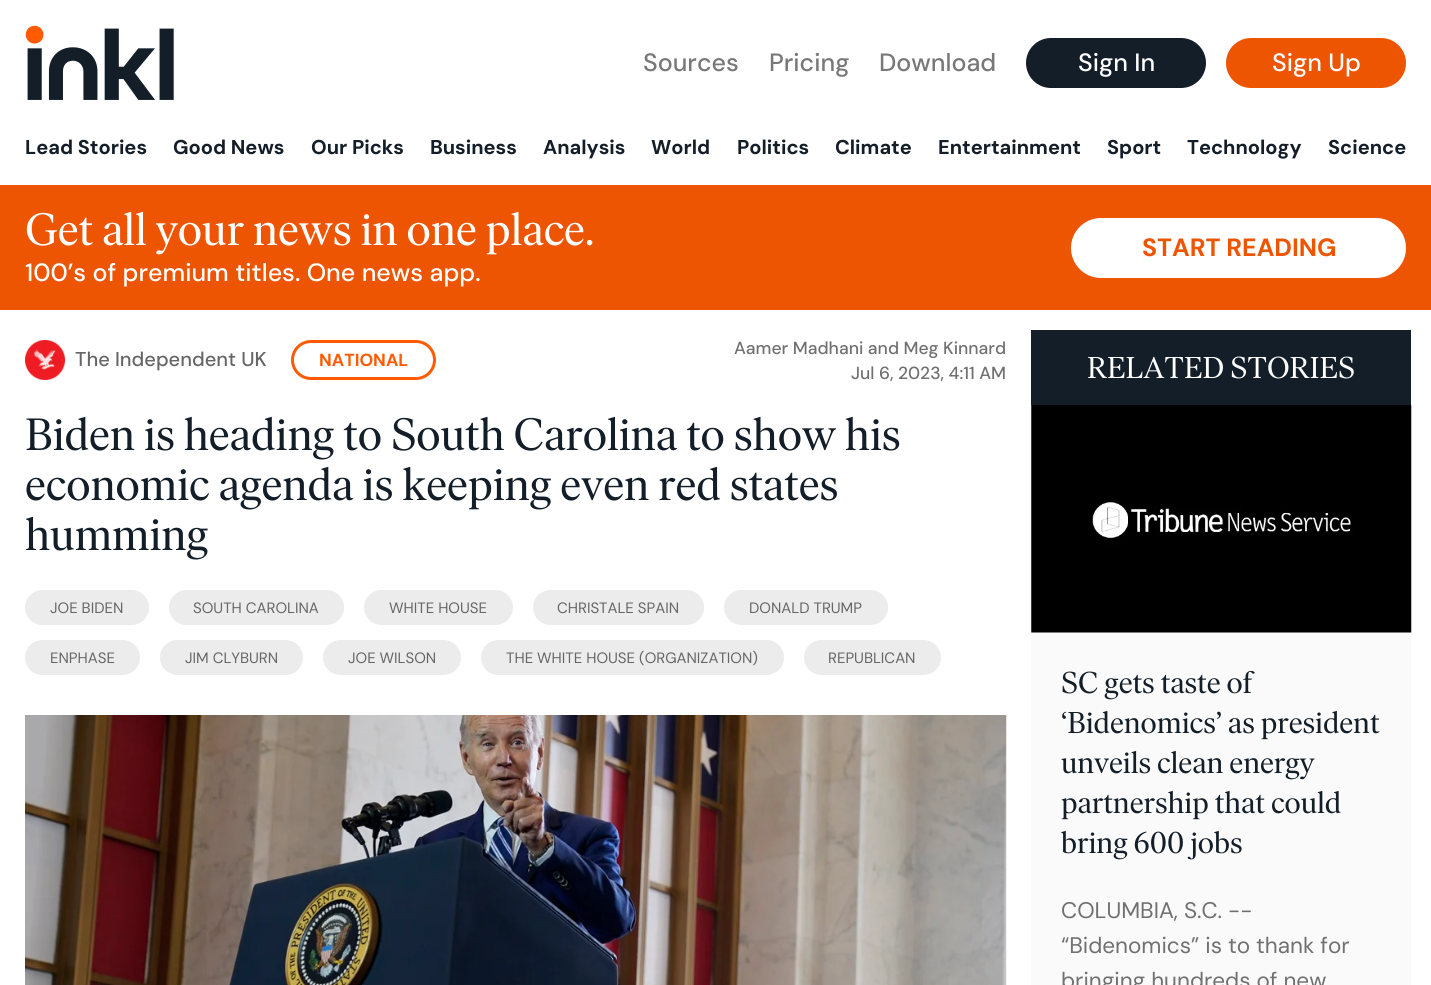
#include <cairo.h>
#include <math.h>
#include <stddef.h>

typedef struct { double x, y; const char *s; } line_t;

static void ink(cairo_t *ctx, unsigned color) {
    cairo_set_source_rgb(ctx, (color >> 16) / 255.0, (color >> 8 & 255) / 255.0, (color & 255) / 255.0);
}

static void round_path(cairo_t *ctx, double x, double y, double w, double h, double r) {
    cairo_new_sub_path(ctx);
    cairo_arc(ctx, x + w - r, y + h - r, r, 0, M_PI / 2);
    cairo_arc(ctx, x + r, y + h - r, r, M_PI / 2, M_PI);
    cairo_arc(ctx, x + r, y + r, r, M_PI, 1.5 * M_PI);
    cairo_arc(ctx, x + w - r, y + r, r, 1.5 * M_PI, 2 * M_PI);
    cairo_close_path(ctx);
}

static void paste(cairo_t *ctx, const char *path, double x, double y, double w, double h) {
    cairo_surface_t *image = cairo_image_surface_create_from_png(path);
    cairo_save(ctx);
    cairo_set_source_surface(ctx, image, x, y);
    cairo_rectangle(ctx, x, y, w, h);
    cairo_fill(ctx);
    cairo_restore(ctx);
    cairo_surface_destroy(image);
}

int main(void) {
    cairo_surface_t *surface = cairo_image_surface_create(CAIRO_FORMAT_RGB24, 1431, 985);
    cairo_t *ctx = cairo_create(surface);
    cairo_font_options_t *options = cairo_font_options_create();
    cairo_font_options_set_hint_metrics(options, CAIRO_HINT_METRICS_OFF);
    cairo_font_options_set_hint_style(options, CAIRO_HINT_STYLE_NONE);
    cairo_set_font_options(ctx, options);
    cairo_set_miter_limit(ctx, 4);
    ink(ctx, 0xFFFFFF);
    cairo_paint(ctx);
    paste(ctx, "media/1.png", 25, 25, 149, 75);
    cairo_select_font_face(ctx, "DM Sans Medium", CAIRO_FONT_SLANT_NORMAL, CAIRO_FONT_WEIGHT_NORMAL);
    cairo_set_font_size(ctx, 25);
    ink(ctx, 0x787878);
    {
        static const line_t items[] = {
            {643, 71, "Sources"},
            {769, 71, "Pricing"},
            {879, 71, "Download"},
        };
        for (size_t i = 0; i < sizeof items / sizeof *items; i++) {
            cairo_move_to(ctx, items[i].x, items[i].y);
            cairo_show_text(ctx, items[i].s);
        }
    }
    ink(ctx, 0x141E28);
    round_path(ctx, 1026, 38, 180, 50, 25);
    cairo_fill(ctx);
    ink(ctx, 0xFFFFFF);
    cairo_move_to(ctx, 1078, 71);
    cairo_show_text(ctx, "Sign In");
    ink(ctx, 0xED5503);
    round_path(ctx, 1226, 38, 180, 50, 25);
    cairo_fill(ctx);
    ink(ctx, 0xFFFFFF);
    cairo_move_to(ctx, 1272, 71);
    cairo_show_text(ctx, "Sign Up");
    cairo_select_font_face(ctx, "DM Sans", CAIRO_FONT_SLANT_NORMAL, CAIRO_FONT_WEIGHT_BOLD);
    cairo_set_font_size(ctx, 20);
    ink(ctx, 0x141E28);
    {
        static const line_t items[] = {
            {25, 154, "Lead Stories"},
            {173, 154, "Good News"},
            {311, 154, "Our Picks"},
            {430, 154, "Business"},
            {543, 154, "Analysis"},
            {651, 154, "World"},
            {737, 154, "Politics"},
            {835, 154, "Climate"},
            {938, 154, "Entertainment"},
            {1107, 154, "Sport"},
            {1187, 154, "Technology"},
            {1328, 154, "Science"},
        };
        for (size_t i = 0; i < sizeof items / sizeof *items; i++) {
            cairo_move_to(ctx, items[i].x, items[i].y);
            cairo_show_text(ctx, items[i].s);
        }
    }
    ink(ctx, 0xED5503);
    cairo_rectangle(ctx, 0, 185, 1431, 125);
    cairo_fill(ctx);
    cairo_select_font_face(ctx, "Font", CAIRO_FONT_SLANT_NORMAL, CAIRO_FONT_WEIGHT_NORMAL);
    cairo_set_font_size(ctx, 45);
    ink(ctx, 0xFFFFFF);
    cairo_move_to(ctx, 25, 245);
    cairo_show_text(ctx, "Get all your news in one place.");
    cairo_select_font_face(ctx, "DM Sans Medium", CAIRO_FONT_SLANT_NORMAL, CAIRO_FONT_WEIGHT_NORMAL);
    cairo_set_font_size(ctx, 25);
    cairo_move_to(ctx, 25, 281);
    cairo_show_text(ctx, "100’s of premium titles. One news app.");
    round_path(ctx, 1071, 218, 335, 60, 30);
    cairo_fill(ctx);
    cairo_select_font_face(ctx, "DM Sans", CAIRO_FONT_SLANT_NORMAL, CAIRO_FONT_WEIGHT_BOLD);
    ink(ctx, 0xED5503);
    cairo_move_to(ctx, 1142, 256);
    cairo_show_text(ctx, "START READING");
    paste(ctx, "media/2.png", 25, 340, 40, 40);
    cairo_select_font_face(ctx, "DM Sans Medium", CAIRO_FONT_SLANT_NORMAL, CAIRO_FONT_WEIGHT_NORMAL);
    cairo_set_font_size(ctx, 20);
    ink(ctx, 0x666666);
    cairo_move_to(ctx, 75, 366);
    cairo_show_text(ctx, "The Independent UK");
    round_path(ctx, 292.5, 341.5, 142, 37, 18.5);
    ink(ctx, 0xFF5B03);
    cairo_set_line_width(ctx, 3);
    cairo_stroke(ctx);
    cairo_select_font_face(ctx, "DM Sans", CAIRO_FONT_SLANT_NORMAL, CAIRO_FONT_WEIGHT_BOLD);
    cairo_set_font_size(ctx, 17.5);
    cairo_move_to(ctx, 319, 366);
    cairo_show_text(ctx, "NATIONAL");
    cairo_select_font_face(ctx, "DM Sans Medium", CAIRO_FONT_SLANT_NORMAL, CAIRO_FONT_WEIGHT_NORMAL);
    ink(ctx, 0x707070);
    cairo_move_to(ctx, 734, 354);
    cairo_show_text(ctx, "Aamer Madhani and Meg Kinnard");
    cairo_move_to(ctx, 851, 379);
    cairo_show_text(ctx, "Jul 6, 2023, 4:11 AM");
    cairo_select_font_face(ctx, "Font", CAIRO_FONT_SLANT_NORMAL, CAIRO_FONT_WEIGHT_NORMAL);
    cairo_set_font_size(ctx, 45);
    ink(ctx, 0x141E28);
    {
        static const line_t items[] = {
            {25, 450, "Biden is heading to South Carolina to show his"},
            {25, 500, "economic agenda is keeping even red states"},
            {25, 550, "humming"},
        };
        for (size_t i = 0; i < sizeof items / sizeof *items; i++) {
            cairo_move_to(ctx, items[i].x, items[i].y);
            cairo_show_text(ctx, items[i].s);
        }
    }
    ink(ctx, 0xECECEC);
    round_path(ctx, 25, 590, 124, 35, 17.5);
    cairo_fill(ctx);
    cairo_select_font_face(ctx, "DM Sans", CAIRO_FONT_SLANT_NORMAL, CAIRO_FONT_WEIGHT_NORMAL);
    cairo_set_font_size(ctx, 15);
    ink(ctx, 0x666666);
    cairo_move_to(ctx, 50, 613);
    cairo_show_text(ctx, "JOE BIDEN");
    ink(ctx, 0xECECEC);
    round_path(ctx, 169, 590, 175, 35, 17.5);
    cairo_fill(ctx);
    ink(ctx, 0x666666);
    cairo_move_to(ctx, 193, 613);
    cairo_show_text(ctx, "SOUTH CAROLINA");
    ink(ctx, 0xECECEC);
    round_path(ctx, 364, 590, 149, 35, 17.5);
    cairo_fill(ctx);
    ink(ctx, 0x666666);
    cairo_move_to(ctx, 389, 613);
    cairo_show_text(ctx, "WHITE HOUSE");
    ink(ctx, 0xECECEC);
    round_path(ctx, 533, 590, 171, 35, 17.5);
    cairo_fill(ctx);
    ink(ctx, 0x666666);
    cairo_move_to(ctx, 557, 613);
    cairo_show_text(ctx, "CHRISTALE SPAIN");
    ink(ctx, 0xECECEC);
    round_path(ctx, 724, 590, 164, 35, 17.5);
    cairo_fill(ctx);
    ink(ctx, 0x666666);
    cairo_move_to(ctx, 749, 613);
    cairo_show_text(ctx, "DONALD TRUMP");
    ink(ctx, 0xECECEC);
    round_path(ctx, 25, 640, 115, 35, 17.5);
    cairo_fill(ctx);
    ink(ctx, 0x666666);
    cairo_move_to(ctx, 50, 663);
    cairo_show_text(ctx, "ENPHASE");
    ink(ctx, 0xECECEC);
    round_path(ctx, 160, 640, 143, 35, 17.5);
    cairo_fill(ctx);
    ink(ctx, 0x666666);
    cairo_move_to(ctx, 185, 663);
    cairo_show_text(ctx, "JIM CLYBURN");
    ink(ctx, 0xECECEC);
    round_path(ctx, 323, 640, 138, 35, 17.5);
    cairo_fill(ctx);
    ink(ctx, 0x666666);
    cairo_move_to(ctx, 348, 663);
    cairo_show_text(ctx, "JOE WILSON");
    ink(ctx, 0xECECEC);
    round_path(ctx, 481, 640, 303, 35, 17.5);
    cairo_fill(ctx);
    ink(ctx, 0x666666);
    cairo_move_to(ctx, 506, 663);
    cairo_show_text(ctx, "THE WHITE HOUSE (ORGANIZATION)");
    ink(ctx, 0xECECEC);
    round_path(ctx, 804, 640, 137, 35, 17.5);
    cairo_fill(ctx);
    ink(ctx, 0x666666);
    cairo_move_to(ctx, 828, 663);
    cairo_show_text(ctx, "REPUBLICAN");
    paste(ctx, "media/3.png", 25, 715, 982, 270);
    ink(ctx, 0x141E28);
    cairo_rectangle(ctx, 1031, 330, 380, 75);
    cairo_fill(ctx);
    cairo_select_font_face(ctx, "Font", CAIRO_FONT_SLANT_NORMAL, CAIRO_FONT_WEIGHT_NORMAL);
    cairo_set_font_size(ctx, 30);
    ink(ctx, 0xFFFFFF);
    cairo_move_to(ctx, 1087, 378);
    cairo_show_text(ctx, "RELATED STORIES");
    ink(ctx, 0xFAFAFA);
    cairo_rectangle(ctx, 1031, 405, 380, 580);
    cairo_fill(ctx);
    paste(ctx, "media/4.png", 1031, 405, 381, 228);
    ink(ctx, 0x141E28);
    {
        static const line_t items[] = {
            {1061, 693, "SC gets taste of"},
            {1061, 733, "‘Bidenomics’ as president"},
            {1061, 773, "unveils clean energy"},
            {1061, 813, "partnership that could"},
            {1061, 853, "bring 600 jobs"},
        };
        for (size_t i = 0; i < sizeof items / sizeof *items; i++) {
            cairo_move_to(ctx, items[i].x, items[i].y);
            cairo_show_text(ctx, items[i].s);
        }
    }
    cairo_select_font_face(ctx, "DM Sans", CAIRO_FONT_SLANT_NORMAL, CAIRO_FONT_WEIGHT_NORMAL);
    cairo_set_font_size(ctx, 22.5);
    ink(ctx, 0x707070);
    {
        static const line_t items[] = {
            {1061, 918, "COLUMBIA, S.C. --"},
            {1061, 953, "“Bidenomics” is to thank for"},
            {1061, 988, "bringing hundreds of new"},
        };
        for (size_t i = 0; i < sizeof items / sizeof *items; i++) {
            cairo_move_to(ctx, items[i].x, items[i].y);
            cairo_show_text(ctx, items[i].s);
        }
    }
    cairo_surface_write_to_png(surface, "image.png");
    cairo_font_options_destroy(options);
    cairo_destroy(ctx);
    cairo_surface_destroy(surface);
    return 0;
}
